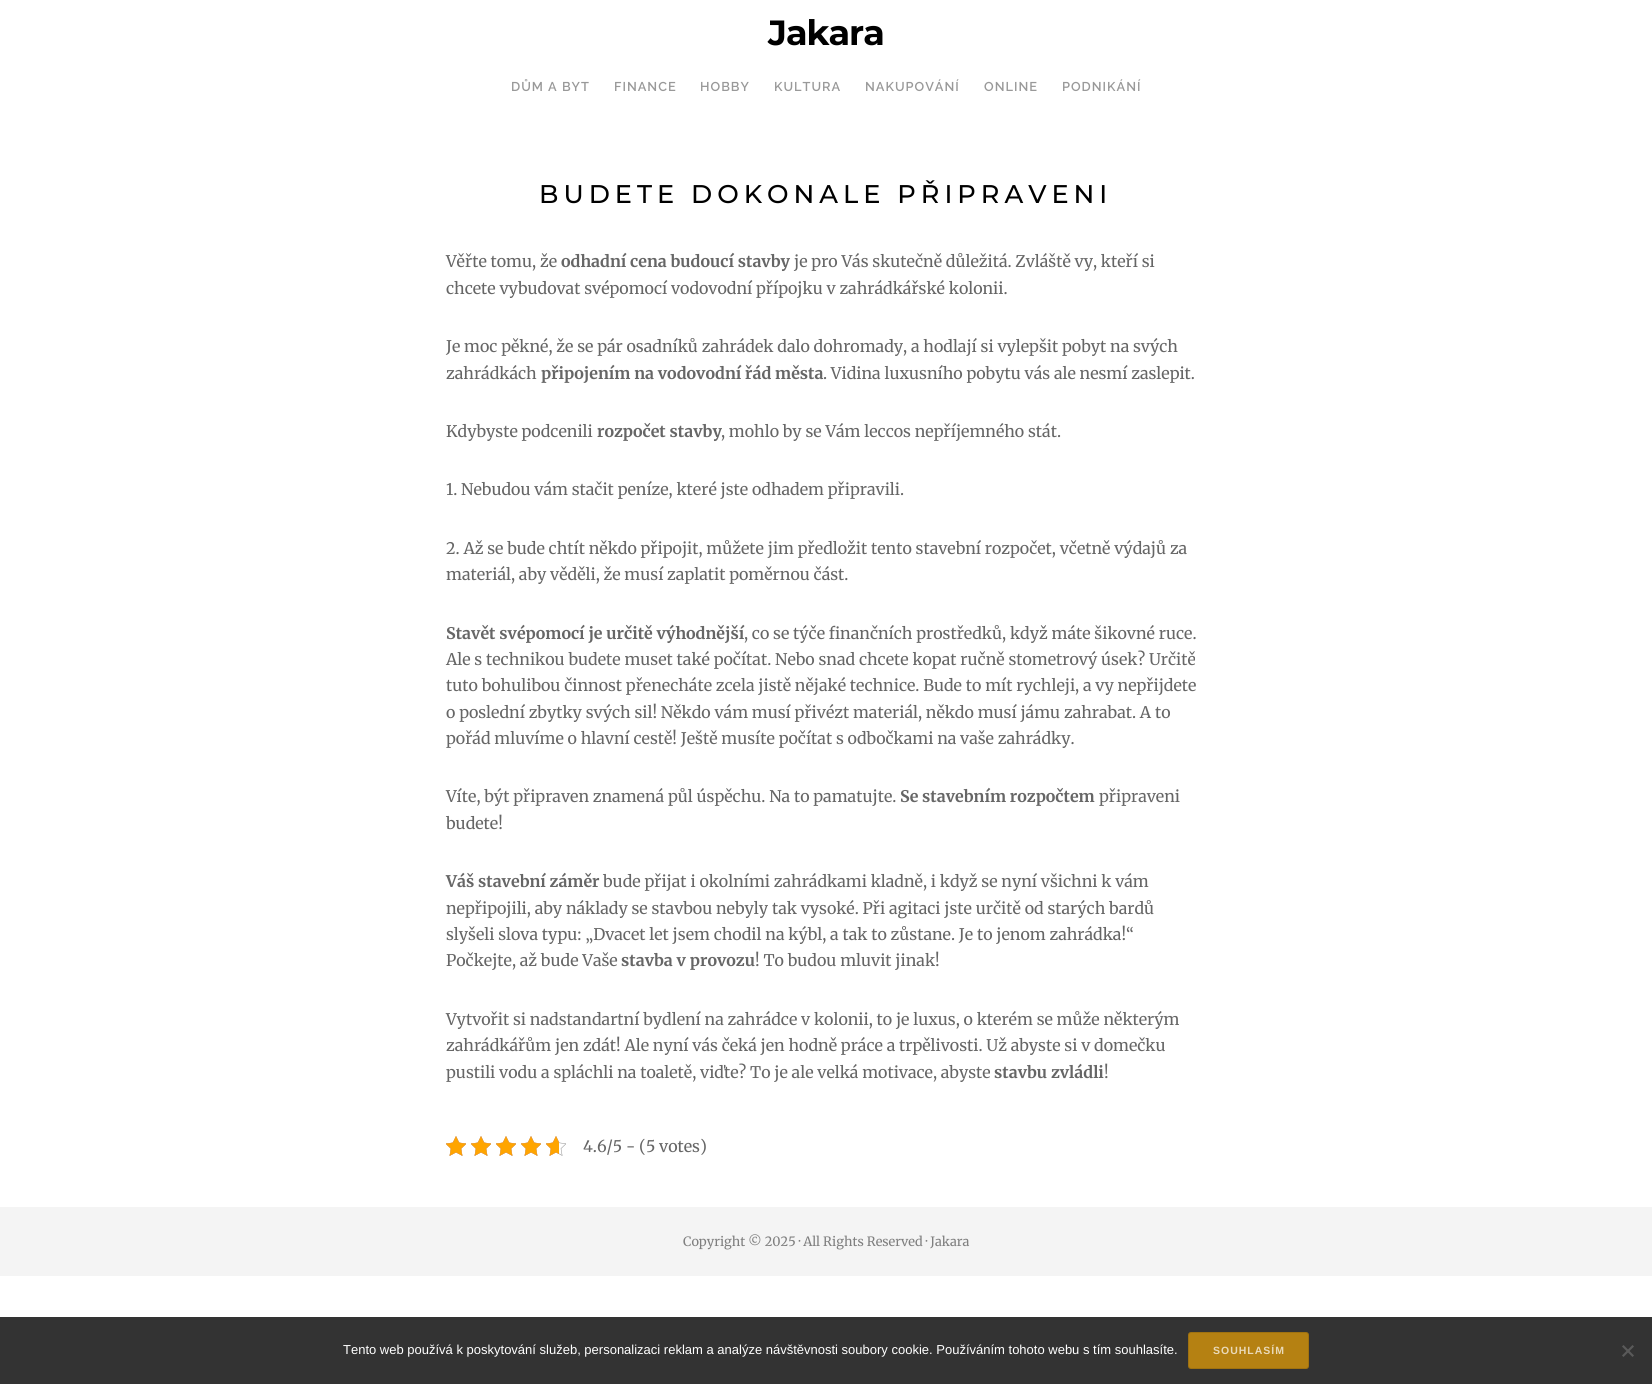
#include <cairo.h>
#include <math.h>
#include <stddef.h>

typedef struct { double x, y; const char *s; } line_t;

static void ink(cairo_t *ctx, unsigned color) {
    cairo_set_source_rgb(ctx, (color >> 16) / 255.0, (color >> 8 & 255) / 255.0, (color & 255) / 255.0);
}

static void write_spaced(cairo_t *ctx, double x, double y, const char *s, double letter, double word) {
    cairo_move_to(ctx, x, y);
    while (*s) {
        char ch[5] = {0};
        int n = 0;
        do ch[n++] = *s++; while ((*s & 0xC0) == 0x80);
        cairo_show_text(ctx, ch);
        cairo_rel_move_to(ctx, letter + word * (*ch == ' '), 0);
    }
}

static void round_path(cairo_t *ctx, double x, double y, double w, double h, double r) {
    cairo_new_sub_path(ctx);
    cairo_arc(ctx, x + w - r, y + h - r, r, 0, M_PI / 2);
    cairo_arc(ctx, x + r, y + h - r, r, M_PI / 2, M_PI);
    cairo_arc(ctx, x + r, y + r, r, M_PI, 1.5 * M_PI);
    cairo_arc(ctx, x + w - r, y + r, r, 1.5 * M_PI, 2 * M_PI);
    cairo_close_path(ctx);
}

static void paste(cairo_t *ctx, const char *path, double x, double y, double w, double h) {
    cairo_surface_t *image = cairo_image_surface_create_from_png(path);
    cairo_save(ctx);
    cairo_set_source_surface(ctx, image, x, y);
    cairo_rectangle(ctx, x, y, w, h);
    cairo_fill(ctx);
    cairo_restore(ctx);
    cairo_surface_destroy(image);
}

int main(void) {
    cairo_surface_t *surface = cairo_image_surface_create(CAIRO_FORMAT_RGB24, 1652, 1384);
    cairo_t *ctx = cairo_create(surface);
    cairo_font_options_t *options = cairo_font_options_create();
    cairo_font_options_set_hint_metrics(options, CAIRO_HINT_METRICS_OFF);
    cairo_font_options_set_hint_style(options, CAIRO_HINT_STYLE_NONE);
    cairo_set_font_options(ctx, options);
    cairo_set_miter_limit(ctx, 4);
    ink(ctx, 0xFFFFFF);
    cairo_paint(ctx);
    cairo_select_font_face(ctx, "Montserrat", CAIRO_FONT_SLANT_NORMAL, CAIRO_FONT_WEIGHT_BOLD);
    cairo_set_font_size(ctx, 35);
    ink(ctx, 0x000000);
    write_spaced(ctx, 768, 45, "Jakara", -1, 0);
    cairo_select_font_face(ctx, "Raleway SemiBold", CAIRO_FONT_SLANT_NORMAL, CAIRO_FONT_WEIGHT_NORMAL);
    cairo_set_font_size(ctx, 12.8);
    ink(ctx, 0x999999);
    {
        static const line_t items[] = {
            {511, 91, "DŮM A BYT"},
            {614, 91, "FINANCE"},
            {700, 91, "HOBBY"},
            {774, 91, "KULTURA"},
            {865, 91, "NAKUPOVÁNÍ"},
            {984, 91, "ONLINE"},
            {1062, 91, "PODNIKÁNÍ"},
        };
        for (size_t i = 0; i < sizeof items / sizeof *items; i++) {
            write_spaced(ctx, items[i].x, items[i].y, items[i].s, 1, 0);
        }
    }
    cairo_select_font_face(ctx, "Montserrat Medium", CAIRO_FONT_SLANT_NORMAL, CAIRO_FONT_WEIGHT_NORMAL);
    cairo_set_font_size(ctx, 25.6);
    ink(ctx, 0x000000);
    write_spaced(ctx, 539, 203, "BUDETE DOKONALE PŘIPRAVENI", 5, 0);
    cairo_select_font_face(ctx, "Merriweather", CAIRO_FONT_SLANT_NORMAL, CAIRO_FONT_WEIGHT_NORMAL);
    cairo_set_font_size(ctx, 16);
    ink(ctx, 0x666666);
    cairo_move_to(ctx, 446, 267);
    cairo_show_text(ctx, "Věřte tomu, že");
    cairo_select_font_face(ctx, "Merriweather", CAIRO_FONT_SLANT_NORMAL, CAIRO_FONT_WEIGHT_BOLD);
    cairo_move_to(ctx, 561, 267);
    cairo_show_text(ctx, "odhadní cena budoucí stavby");
    cairo_select_font_face(ctx, "Merriweather", CAIRO_FONT_SLANT_NORMAL, CAIRO_FONT_WEIGHT_NORMAL);
    {
        static const line_t items[] = {
            {794, 267, "je pro Vás skutečně důležitá. Zvláště vy, kteří si"},
            {446, 294, "chcete vybudovat svépomocí vodovodní přípojku v zahrádkářské kolonii."},
            {446, 352, "Je moc pěkné, že se pár osadníků zahrádek dalo dohromady, a hodlají si vylepšit pobyt na svých"},
            {446, 379, "zahrádkách"},
        };
        for (size_t i = 0; i < sizeof items / sizeof *items; i++) {
            cairo_move_to(ctx, items[i].x, items[i].y);
            cairo_show_text(ctx, items[i].s);
        }
    }
    cairo_select_font_face(ctx, "Merriweather", CAIRO_FONT_SLANT_NORMAL, CAIRO_FONT_WEIGHT_BOLD);
    cairo_move_to(ctx, 541, 379);
    cairo_show_text(ctx, "připojením na vodovodní řád města");
    cairo_select_font_face(ctx, "Merriweather", CAIRO_FONT_SLANT_NORMAL, CAIRO_FONT_WEIGHT_NORMAL);
    cairo_move_to(ctx, 823, 379);
    cairo_show_text(ctx, ". Vidina luxusního pobytu vás ale nesmí zaslepit.");
    cairo_move_to(ctx, 446, 437);
    cairo_show_text(ctx, "Kdybyste podcenili");
    cairo_select_font_face(ctx, "Merriweather", CAIRO_FONT_SLANT_NORMAL, CAIRO_FONT_WEIGHT_BOLD);
    cairo_move_to(ctx, 597, 437);
    cairo_show_text(ctx, "rozpočet stavby");
    cairo_select_font_face(ctx, "Merriweather", CAIRO_FONT_SLANT_NORMAL, CAIRO_FONT_WEIGHT_NORMAL);
    {
        static const line_t items[] = {
            {721, 437, ", mohlo by se Vám leccos nepříjemného stát."},
            {446, 495, "1. Nebudou vám stačit peníze, které jste odhadem připravili."},
            {446, 554, "2. Až se bude chtít někdo připojit, můžete jim předložit tento stavební rozpočet, včetně výdajů za"},
            {446, 580, "materiál, aby věděli, že musí zaplatit poměrnou část."},
        };
        for (size_t i = 0; i < sizeof items / sizeof *items; i++) {
            cairo_move_to(ctx, items[i].x, items[i].y);
            cairo_show_text(ctx, items[i].s);
        }
    }
    cairo_select_font_face(ctx, "Merriweather", CAIRO_FONT_SLANT_NORMAL, CAIRO_FONT_WEIGHT_BOLD);
    cairo_move_to(ctx, 446, 639);
    cairo_show_text(ctx, "Stavět svépomocí je určitě výhodnější");
    cairo_select_font_face(ctx, "Merriweather", CAIRO_FONT_SLANT_NORMAL, CAIRO_FONT_WEIGHT_NORMAL);
    {
        static const line_t items[] = {
            {744, 639, ", co se týče finančních prostředků, když máte šikovné ruce."},
            {446, 665, "Ale s technikou budete muset také počítat. Nebo snad chcete kopat ručně stometrový úsek? Určitě"},
            {446, 691, "tuto bohulibou činnost přenecháte zcela jistě nějaké technice. Bude to mít rychleji, a vy nepřijdete"},
            {446, 718, "o poslední zbytky svých sil! Někdo vám musí přivézt materiál, někdo musí jámu zahrabat. A to"},
            {446, 744, "pořád mluvíme o hlavní cestě! Ještě musíte počítat s odbočkami na vaše zahrádky."},
            {446, 802, "Víte, být připraven znamená půl úspěchu. Na to pamatujte."},
        };
        for (size_t i = 0; i < sizeof items / sizeof *items; i++) {
            cairo_move_to(ctx, items[i].x, items[i].y);
            cairo_show_text(ctx, items[i].s);
        }
    }
    cairo_select_font_face(ctx, "Merriweather", CAIRO_FONT_SLANT_NORMAL, CAIRO_FONT_WEIGHT_BOLD);
    cairo_move_to(ctx, 900, 802);
    cairo_show_text(ctx, "Se stavebním rozpočtem");
    cairo_select_font_face(ctx, "Merriweather", CAIRO_FONT_SLANT_NORMAL, CAIRO_FONT_WEIGHT_NORMAL);
    cairo_move_to(ctx, 1099, 802);
    cairo_show_text(ctx, "připraveni");
    cairo_move_to(ctx, 446, 829);
    cairo_show_text(ctx, "budete!");
    cairo_select_font_face(ctx, "Merriweather", CAIRO_FONT_SLANT_NORMAL, CAIRO_FONT_WEIGHT_BOLD);
    cairo_move_to(ctx, 446, 887);
    cairo_show_text(ctx, "Váš stavební záměr");
    cairo_select_font_face(ctx, "Merriweather", CAIRO_FONT_SLANT_NORMAL, CAIRO_FONT_WEIGHT_NORMAL);
    {
        static const line_t items[] = {
            {603, 887, "bude přijat i okolními zahrádkami kladně, i když se nyní všichni k vám"},
            {446, 914, "nepřipojili, aby náklady se stavbou nebyly tak vysoké. Při agitaci jste určitě od starých bardů"},
            {446, 940, "slyšeli slova typu: „Dvacet let jsem chodil na kýbl, a tak to zůstane. Je to jenom zahrádka!“"},
            {446, 966, "Počkejte, až bude Vaše"},
        };
        for (size_t i = 0; i < sizeof items / sizeof *items; i++) {
            cairo_move_to(ctx, items[i].x, items[i].y);
            cairo_show_text(ctx, items[i].s);
        }
    }
    cairo_select_font_face(ctx, "Merriweather", CAIRO_FONT_SLANT_NORMAL, CAIRO_FONT_WEIGHT_BOLD);
    cairo_move_to(ctx, 621, 966);
    cairo_show_text(ctx, "stavba v provozu");
    cairo_select_font_face(ctx, "Merriweather", CAIRO_FONT_SLANT_NORMAL, CAIRO_FONT_WEIGHT_NORMAL);
    {
        static const line_t items[] = {
            {755, 966, "! To budou mluvit jinak!"},
            {446, 1025, "Vytvořit si nadstandartní bydlení na zahrádce v kolonii, to je luxus, o kterém se může některým"},
            {446, 1051, "zahrádkářům jen zdát! Ale nyní vás čeká jen hodně práce a trpělivosti. Už abyste si v domečku"},
            {446, 1078, "pustili vodu a spláchli na toaletě, viďte? To je ale velká motivace, abyste"},
        };
        for (size_t i = 0; i < sizeof items / sizeof *items; i++) {
            cairo_move_to(ctx, items[i].x, items[i].y);
            cairo_show_text(ctx, items[i].s);
        }
    }
    cairo_select_font_face(ctx, "Merriweather", CAIRO_FONT_SLANT_NORMAL, CAIRO_FONT_WEIGHT_BOLD);
    cairo_move_to(ctx, 994, 1078);
    cairo_show_text(ctx, "stavbu zvládli");
    cairo_select_font_face(ctx, "Merriweather", CAIRO_FONT_SLANT_NORMAL, CAIRO_FONT_WEIGHT_NORMAL);
    cairo_move_to(ctx, 1104, 1078);
    cairo_show_text(ctx, "!");
    paste(ctx, "media/1.png", 446, 1136, 20, 20);
    paste(ctx, "media/1.png", 471, 1136, 20, 20);
    paste(ctx, "media/1.png", 496, 1136, 20, 20);
    paste(ctx, "media/1.png", 521, 1136, 20, 20);
    paste(ctx, "media/1.png", 546, 1136, 20, 20);
    paste(ctx, "media/2.png", 446, 1136, 20, 20);
    paste(ctx, "media/2.png", 471, 1136, 20, 20);
    paste(ctx, "media/2.png", 496, 1136, 20, 20);
    paste(ctx, "media/2.png", 521, 1136, 20, 20);
    paste(ctx, "media/3.png", 546, 1136, 13, 20);
    cairo_move_to(ctx, 583, 1152);
    cairo_show_text(ctx, "4.6/5 - (5 votes)");
    ink(ctx, 0xF4F4F4);
    cairo_rectangle(ctx, 0, 1207, 1652, 69);
    cairo_fill(ctx);
    cairo_set_font_size(ctx, 12.8);
    ink(ctx, 0x7F7F7F);
    cairo_move_to(ctx, 683, 1246);
    cairo_show_text(ctx, "Copyright © 2025 · All Rights Reserved · Jakara");
    ink(ctx, 0x333333);
    cairo_rectangle(ctx, 0, 1317, 1652, 67);
    cairo_fill(ctx);
    cairo_select_font_face(ctx, "Liberation Sans", CAIRO_FONT_SLANT_NORMAL, CAIRO_FONT_WEIGHT_NORMAL);
    cairo_set_font_size(ctx, 13);
    ink(ctx, 0xFFFFFF);
    cairo_move_to(ctx, 343, 1354);
    cairo_show_text(ctx, "Tento web používá k poskytování služeb, personalizaci reklam a analýze návštěvnosti soubory cookie. Používáním tohoto webu s tím souhlasíte.");
    ink(ctx, 0xB58112);
    round_path(ctx, 1188, 1332, 121, 37, 3);
    cairo_fill(ctx);
    round_path(ctx, 1188.5, 1332.5, 120, 36, 2.5);
    cairo_set_source_rgba(ctx, 0, 0, 0, 0.12);
    cairo_set_line_width(ctx, 1);
    cairo_stroke(ctx);
    cairo_select_font_face(ctx, "Liberation Sans", CAIRO_FONT_SLANT_NORMAL, CAIRO_FONT_WEIGHT_BOLD);
    cairo_set_font_size(ctx, 10.5);
    ink(ctx, 0xE9D9B8);
    write_spaced(ctx, 1213, 1354, "SOUHLASÍM", 1, 0);
    ink(ctx, 0x5A5A5A);
    cairo_new_path(ctx);
    cairo_move_to(ctx, 1632.5, 1345);
    cairo_line_to(ctx, 1634, 1346.5);
    cairo_line_to(ctx, 1623.5, 1357);
    cairo_line_to(ctx, 1622, 1355.5);
    cairo_close_path(ctx);
    cairo_fill(ctx);
    cairo_new_path(ctx);
    cairo_move_to(ctx, 1622, 1346.5);
    cairo_line_to(ctx, 1623.5, 1345);
    cairo_line_to(ctx, 1634, 1355.5);
    cairo_line_to(ctx, 1632.5, 1357);
    cairo_close_path(ctx);
    cairo_fill(ctx);
    cairo_surface_write_to_png(surface, "image.png");
    cairo_font_options_destroy(options);
    cairo_destroy(ctx);
    cairo_surface_destroy(surface);
    return 0;
}
